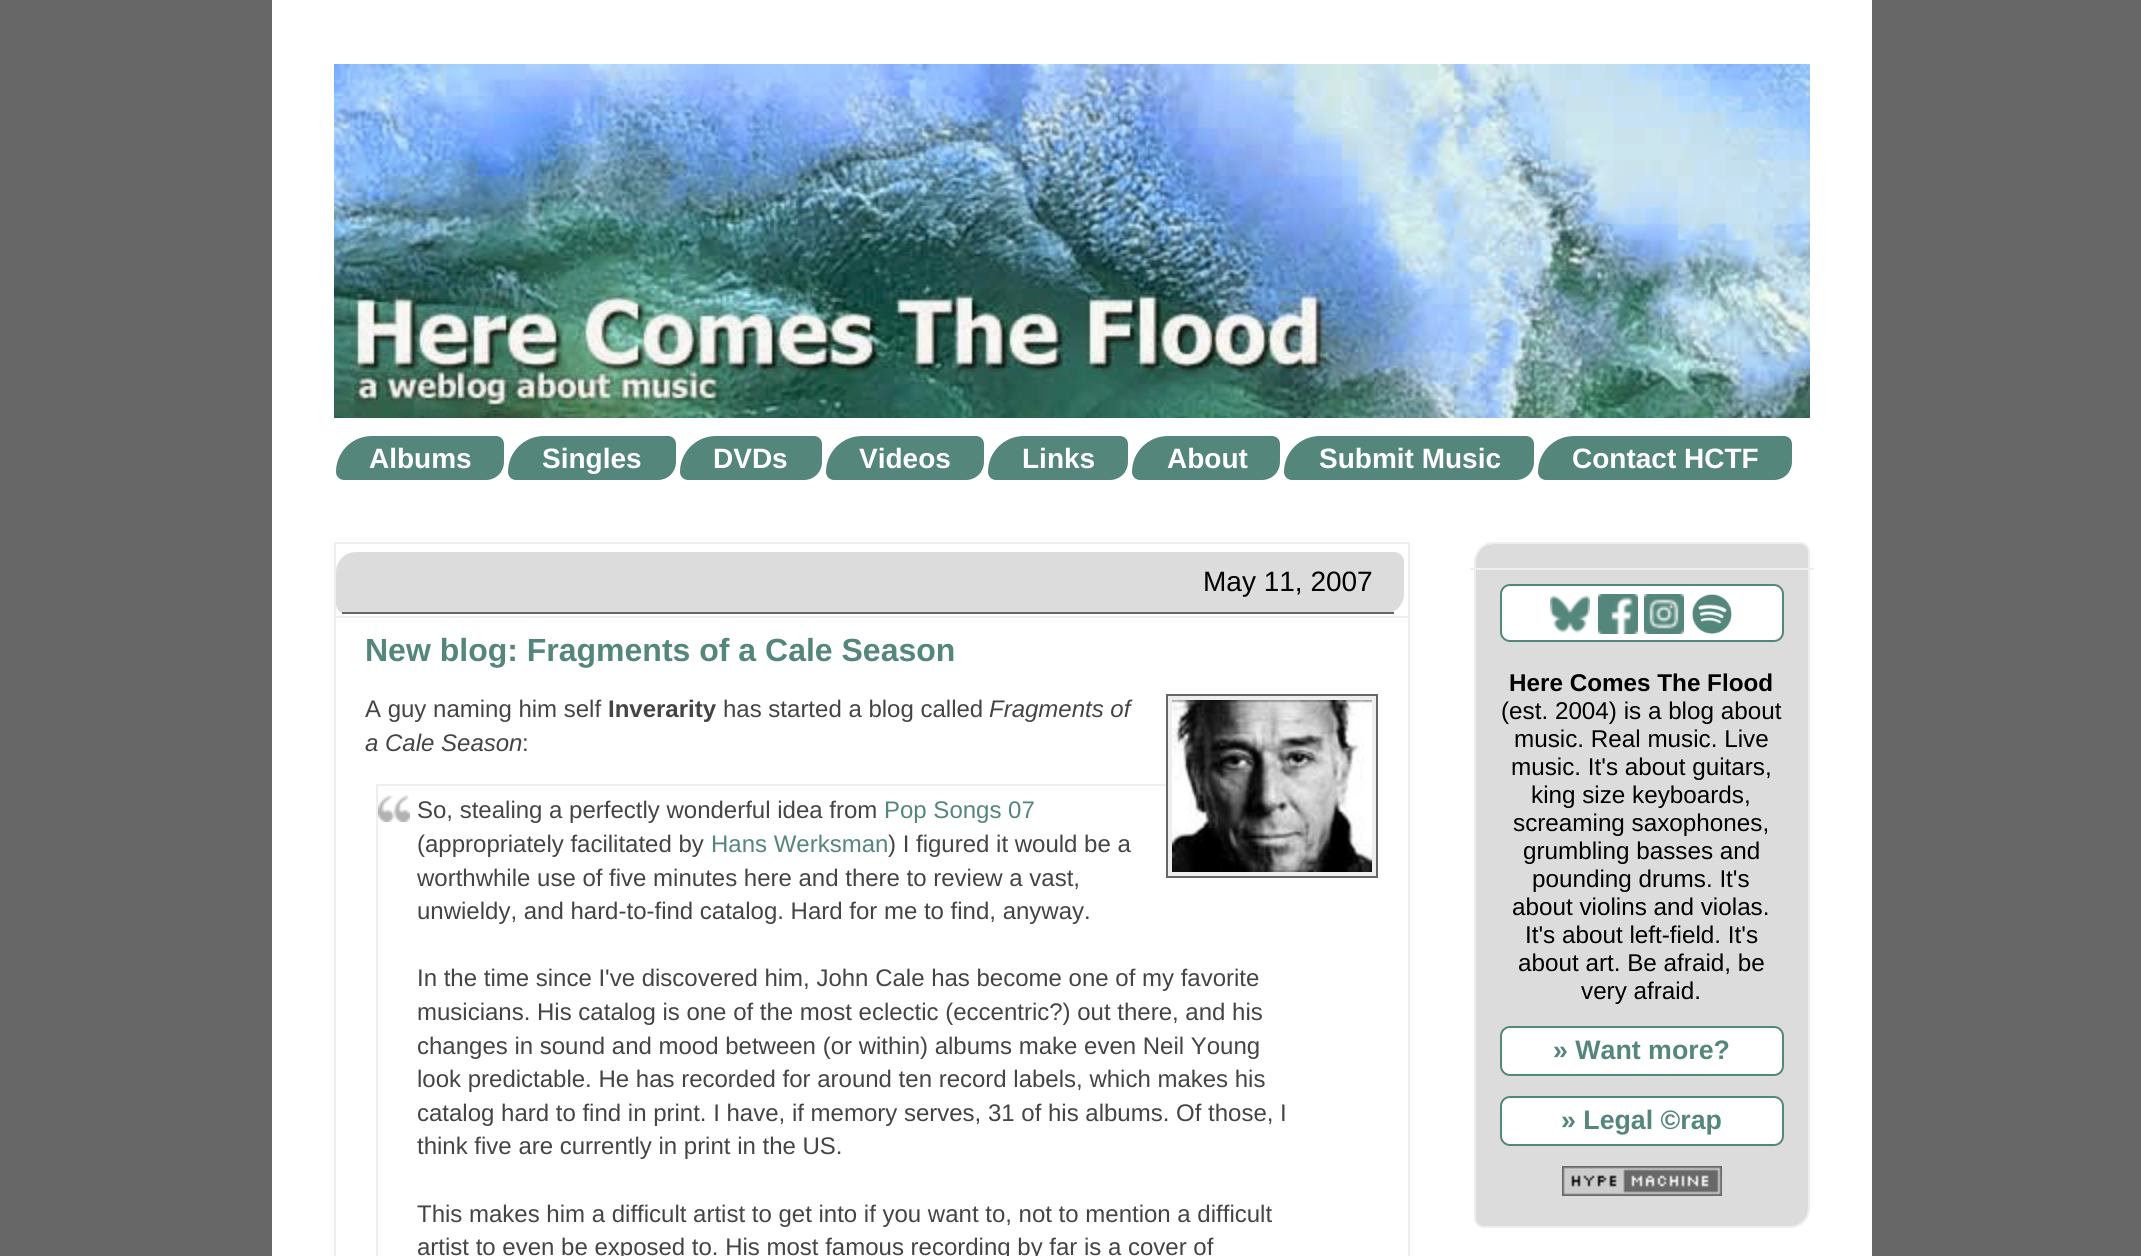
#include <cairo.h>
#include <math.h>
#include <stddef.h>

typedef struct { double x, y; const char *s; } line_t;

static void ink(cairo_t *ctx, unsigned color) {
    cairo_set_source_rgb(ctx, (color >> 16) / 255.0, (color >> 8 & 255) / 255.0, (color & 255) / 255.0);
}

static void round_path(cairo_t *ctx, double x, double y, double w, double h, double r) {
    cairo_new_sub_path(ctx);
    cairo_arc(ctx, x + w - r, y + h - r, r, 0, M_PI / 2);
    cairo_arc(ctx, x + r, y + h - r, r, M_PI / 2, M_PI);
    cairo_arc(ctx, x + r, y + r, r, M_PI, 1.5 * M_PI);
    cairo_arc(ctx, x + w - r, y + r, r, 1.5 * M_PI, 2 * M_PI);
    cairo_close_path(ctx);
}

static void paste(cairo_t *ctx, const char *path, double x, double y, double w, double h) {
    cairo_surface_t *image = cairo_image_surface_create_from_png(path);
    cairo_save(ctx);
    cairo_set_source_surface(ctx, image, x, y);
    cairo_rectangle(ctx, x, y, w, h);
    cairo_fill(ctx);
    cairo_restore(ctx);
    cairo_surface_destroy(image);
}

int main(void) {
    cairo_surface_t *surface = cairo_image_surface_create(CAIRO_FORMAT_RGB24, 2141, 1256);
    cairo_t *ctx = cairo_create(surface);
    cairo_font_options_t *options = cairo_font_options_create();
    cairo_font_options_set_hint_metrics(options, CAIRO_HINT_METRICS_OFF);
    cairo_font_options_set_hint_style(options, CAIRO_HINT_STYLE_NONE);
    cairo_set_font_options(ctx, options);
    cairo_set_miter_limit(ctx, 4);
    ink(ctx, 0x676767);
    cairo_paint(ctx);
    ink(ctx, 0xFFFFFF);
    cairo_rectangle(ctx, 272, 0, 1600, 1256);
    cairo_fill(ctx);
    paste(ctx, "media/1.png", 334, 64, 1476, 354);
    ink(ctx, 0x676767);
    cairo_rectangle(ctx, 272, 418, 1600, 64);
    cairo_fill(ctx);
    ink(ctx, 0xFFFFFF);
    cairo_rectangle(ctx, 272, 418, 1600, 64);
    cairo_fill(ctx);
    ink(ctx, 0x54867C);
    cairo_new_path(ctx);
    cairo_move_to(ctx, 372, 435);
    cairo_line_to(ctx, 496, 435);
    cairo_curve_to(ctx, 501, 435, 505, 439, 505, 444);
    cairo_line_to(ctx, 505, 462);
    cairo_curve_to(ctx, 505, 472.5, 496.5, 481, 486, 481);
    cairo_line_to(ctx, 344, 481);
    cairo_curve_to(ctx, 339, 481, 335, 477, 335, 472);
    cairo_curve_to(ctx, 335, 451.5, 351.5, 435, 372, 435);
    cairo_close_path(ctx);
    cairo_fill_preserve(ctx);
    ink(ctx, 0xFFFFFF);
    cairo_stroke(ctx);
    cairo_select_font_face(ctx, "Liberation Sans", CAIRO_FONT_SLANT_NORMAL, CAIRO_FONT_WEIGHT_BOLD);
    cairo_set_font_size(ctx, 28);
    cairo_move_to(ctx, 369, 468);
    cairo_show_text(ctx, "Albums");
    ink(ctx, 0x54867C);
    cairo_new_path(ctx);
    cairo_move_to(ctx, 544, 435);
    cairo_line_to(ctx, 668, 435);
    cairo_curve_to(ctx, 673, 435, 677, 439, 677, 444);
    cairo_line_to(ctx, 677, 462);
    cairo_curve_to(ctx, 677, 472.5, 668.5, 481, 658, 481);
    cairo_line_to(ctx, 516, 481);
    cairo_curve_to(ctx, 511, 481, 507, 477, 507, 472);
    cairo_curve_to(ctx, 507, 451.5, 523.5, 435, 544, 435);
    cairo_close_path(ctx);
    cairo_fill_preserve(ctx);
    ink(ctx, 0xFFFFFF);
    cairo_stroke(ctx);
    cairo_move_to(ctx, 542, 468);
    cairo_show_text(ctx, "Singles");
    ink(ctx, 0x54867C);
    cairo_new_path(ctx);
    cairo_move_to(ctx, 716, 435);
    cairo_line_to(ctx, 814, 435);
    cairo_curve_to(ctx, 819, 435, 823, 439, 823, 444);
    cairo_line_to(ctx, 823, 462);
    cairo_curve_to(ctx, 823, 472.5, 814.5, 481, 804, 481);
    cairo_line_to(ctx, 688, 481);
    cairo_curve_to(ctx, 683, 481, 679, 477, 679, 472);
    cairo_curve_to(ctx, 679, 451.5, 695.5, 435, 716, 435);
    cairo_close_path(ctx);
    cairo_fill_preserve(ctx);
    ink(ctx, 0xFFFFFF);
    cairo_stroke(ctx);
    cairo_move_to(ctx, 713, 468);
    cairo_show_text(ctx, "DVDs");
    ink(ctx, 0x54867C);
    cairo_new_path(ctx);
    cairo_move_to(ctx, 862, 435);
    cairo_line_to(ctx, 976, 435);
    cairo_curve_to(ctx, 981, 435, 985, 439, 985, 444);
    cairo_line_to(ctx, 985, 462);
    cairo_curve_to(ctx, 985, 472.5, 976.5, 481, 966, 481);
    cairo_line_to(ctx, 834, 481);
    cairo_curve_to(ctx, 829, 481, 825, 477, 825, 472);
    cairo_curve_to(ctx, 825, 451.5, 841.5, 435, 862, 435);
    cairo_close_path(ctx);
    cairo_fill_preserve(ctx);
    ink(ctx, 0xFFFFFF);
    cairo_stroke(ctx);
    cairo_move_to(ctx, 859, 468);
    cairo_show_text(ctx, "Videos");
    ink(ctx, 0x54867C);
    cairo_new_path(ctx);
    cairo_move_to(ctx, 1024, 435);
    cairo_line_to(ctx, 1120, 435);
    cairo_curve_to(ctx, 1125, 435, 1129, 439, 1129, 444);
    cairo_line_to(ctx, 1129, 462);
    cairo_curve_to(ctx, 1129, 472.5, 1120.5, 481, 1110, 481);
    cairo_line_to(ctx, 996, 481);
    cairo_curve_to(ctx, 991, 481, 987, 477, 987, 472);
    cairo_curve_to(ctx, 987, 451.5, 1003.5, 435, 1024, 435);
    cairo_close_path(ctx);
    cairo_fill_preserve(ctx);
    ink(ctx, 0xFFFFFF);
    cairo_stroke(ctx);
    cairo_move_to(ctx, 1022, 468);
    cairo_show_text(ctx, "Links");
    ink(ctx, 0x54867C);
    cairo_new_path(ctx);
    cairo_move_to(ctx, 1168, 435);
    cairo_line_to(ctx, 1272, 435);
    cairo_curve_to(ctx, 1277, 435, 1281, 439, 1281, 444);
    cairo_line_to(ctx, 1281, 462);
    cairo_curve_to(ctx, 1281, 472.5, 1272.5, 481, 1262, 481);
    cairo_line_to(ctx, 1140, 481);
    cairo_curve_to(ctx, 1135, 481, 1131, 477, 1131, 472);
    cairo_curve_to(ctx, 1131, 451.5, 1147.5, 435, 1168, 435);
    cairo_close_path(ctx);
    cairo_fill_preserve(ctx);
    ink(ctx, 0xFFFFFF);
    cairo_stroke(ctx);
    cairo_move_to(ctx, 1167, 468);
    cairo_show_text(ctx, "About");
    ink(ctx, 0x54867C);
    cairo_new_path(ctx);
    cairo_move_to(ctx, 1320, 435);
    cairo_line_to(ctx, 1526, 435);
    cairo_curve_to(ctx, 1531, 435, 1535, 439, 1535, 444);
    cairo_line_to(ctx, 1535, 462);
    cairo_curve_to(ctx, 1535, 472.5, 1526.5, 481, 1516, 481);
    cairo_line_to(ctx, 1292, 481);
    cairo_curve_to(ctx, 1287, 481, 1283, 477, 1283, 472);
    cairo_curve_to(ctx, 1283, 451.5, 1299.5, 435, 1320, 435);
    cairo_close_path(ctx);
    cairo_fill_preserve(ctx);
    ink(ctx, 0xFFFFFF);
    cairo_stroke(ctx);
    cairo_move_to(ctx, 1319, 468);
    cairo_show_text(ctx, "Submit Music");
    ink(ctx, 0x54867C);
    cairo_new_path(ctx);
    cairo_move_to(ctx, 1574, 435);
    cairo_line_to(ctx, 1784, 435);
    cairo_curve_to(ctx, 1789, 435, 1793, 439, 1793, 444);
    cairo_line_to(ctx, 1793, 462);
    cairo_curve_to(ctx, 1793, 472.5, 1784.5, 481, 1774, 481);
    cairo_line_to(ctx, 1546, 481);
    cairo_curve_to(ctx, 1541, 481, 1537, 477, 1537, 472);
    cairo_curve_to(ctx, 1537, 451.5, 1553.5, 435, 1574, 435);
    cairo_close_path(ctx);
    cairo_fill_preserve(ctx);
    ink(ctx, 0xFFFFFF);
    cairo_stroke(ctx);
    cairo_move_to(ctx, 1572, 468);
    cairo_show_text(ctx, "Contact HCTF");
    cairo_rectangle(ctx, 335, 543, 1074, 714);
    ink(ctx, 0xEEEEEE);
    cairo_stroke(ctx);
    ink(ctx, 0xDCDCDC);
    cairo_new_path(ctx);
    cairo_move_to(ctx, 356, 552);
    cairo_line_to(ctx, 1394, 552);
    cairo_curve_to(ctx, 1399.5, 552, 1404, 556.5, 1404, 562);
    cairo_line_to(ctx, 1404, 594);
    cairo_curve_to(ctx, 1404, 605, 1395, 614, 1384, 614);
    cairo_line_to(ctx, 346, 614);
    cairo_curve_to(ctx, 340.5, 614, 336, 609.5, 336, 604);
    cairo_line_to(ctx, 336, 572);
    cairo_curve_to(ctx, 336, 561, 345, 552, 356, 552);
    cairo_close_path(ctx);
    cairo_fill(ctx);
    ink(ctx, 0x666666);
    cairo_rectangle(ctx, 342, 612, 1052, 2);
    cairo_fill(ctx);
    cairo_select_font_face(ctx, "Liberation Sans", CAIRO_FONT_SLANT_NORMAL, CAIRO_FONT_WEIGHT_NORMAL);
    ink(ctx, 0x000000);
    cairo_move_to(ctx, 1203, 591);
    cairo_show_text(ctx, "May 11, 2007");
    ink(ctx, 0xEEEEEE);
    cairo_rectangle(ctx, 336, 616, 1072, 2);
    cairo_fill(ctx);
    cairo_select_font_face(ctx, "Liberation Sans", CAIRO_FONT_SLANT_NORMAL, CAIRO_FONT_WEIGHT_BOLD);
    cairo_set_font_size(ctx, 32);
    ink(ctx, 0x54867C);
    cairo_move_to(ctx, 365, 661);
    cairo_show_text(ctx, "New blog: Fragments of a Cale Season");
    cairo_select_font_face(ctx, "Liberation Sans", CAIRO_FONT_SLANT_NORMAL, CAIRO_FONT_WEIGHT_NORMAL);
    cairo_set_font_size(ctx, 24);
    ink(ctx, 0x444444);
    cairo_move_to(ctx, 365, 717);
    cairo_show_text(ctx, "A guy naming him self");
    cairo_select_font_face(ctx, "Liberation Sans", CAIRO_FONT_SLANT_NORMAL, CAIRO_FONT_WEIGHT_BOLD);
    cairo_move_to(ctx, 608, 717);
    cairo_show_text(ctx, "Inverarity");
    cairo_select_font_face(ctx, "Liberation Sans", CAIRO_FONT_SLANT_NORMAL, CAIRO_FONT_WEIGHT_NORMAL);
    cairo_move_to(ctx, 723, 717);
    cairo_show_text(ctx, "has started a blog called");
    cairo_select_font_face(ctx, "Liberation Sans", CAIRO_FONT_SLANT_ITALIC, CAIRO_FONT_WEIGHT_NORMAL);
    cairo_move_to(ctx, 989, 717);
    cairo_show_text(ctx, "Fragments of");
    cairo_move_to(ctx, 365, 751);
    cairo_show_text(ctx, "a Cale Season");
    cairo_select_font_face(ctx, "Liberation Sans", CAIRO_FONT_SLANT_NORMAL, CAIRO_FONT_WEIGHT_NORMAL);
    cairo_move_to(ctx, 522, 751);
    cairo_show_text(ctx, ":");
    ink(ctx, 0xEEEEEE);
    cairo_rectangle(ctx, 1167, 695, 210, 182);
    cairo_fill_preserve(ctx);
    ink(ctx, 0x666666);
    cairo_stroke(ctx);
    paste(ctx, "media/2.png", 1172, 700, 200, 172);
    paste(ctx, "media/3.png", 378, 795, 32, 27);
    ink(ctx, 0xEEEEEE);
    cairo_rectangle(ctx, 376, 784, 790, 2);
    cairo_fill(ctx);
    cairo_rectangle(ctx, 376, 784, 2, 472);
    cairo_fill(ctx);
    ink(ctx, 0x444444);
    cairo_move_to(ctx, 417, 818);
    cairo_show_text(ctx, "So, stealing a perfectly wonderful idea from");
    ink(ctx, 0x54867C);
    cairo_move_to(ctx, 884, 818);
    cairo_show_text(ctx, "Pop Songs 07");
    ink(ctx, 0x444444);
    cairo_move_to(ctx, 417, 852);
    cairo_show_text(ctx, "(appropriately facilitated by");
    ink(ctx, 0x54867C);
    cairo_move_to(ctx, 711, 852);
    cairo_show_text(ctx, "Hans Werksman");
    ink(ctx, 0x444444);
    {
        static const line_t items[] = {
            {888, 852, ") I figured it would be a"},
            {417, 886, "worthwhile use of five minutes here and there to review a vast,"},
            {417, 919, "unwieldy, and hard-to-find catalog. Hard for me to find, anyway."},
            {417, 986, "In the time since I've discovered him, John Cale has become one of my favorite"},
            {417, 1020, "musicians. His catalog is one of the most eclectic (eccentric?) out there, and his"},
            {417, 1054, "changes in sound and mood between (or within) albums make even Neil Young"},
            {417, 1087, "look predictable. He has recorded for around ten record labels, which makes his"},
            {417, 1121, "catalog hard to find in print. I have, if memory serves, 31 of his albums. Of those, I"},
            {417, 1154, "think five are currently in print in the US."},
            {417, 1222, "This makes him a difficult artist to get into if you want to, not to mention a difficult"},
            {417, 1255, "artist to even be exposed to. His most famous recording by far is a cover of"},
        };
        for (size_t i = 0; i < sizeof items / sizeof *items; i++) {
            cairo_move_to(ctx, items[i].x, items[i].y);
            cairo_show_text(ctx, items[i].s);
        }
    }
    ink(ctx, 0xDCDCDC);
    cairo_new_path(ctx);
    cairo_move_to(ctx, 1494, 543);
    cairo_line_to(ctx, 1800, 543);
    cairo_curve_to(ctx, 1805, 543, 1809, 547, 1809, 552);
    cairo_line_to(ctx, 1809, 1208);
    cairo_curve_to(ctx, 1809, 1218.5, 1800.5, 1227, 1790, 1227);
    cairo_line_to(ctx, 1484, 1227);
    cairo_curve_to(ctx, 1479, 1227, 1475, 1223, 1475, 1218);
    cairo_line_to(ctx, 1475, 562);
    cairo_curve_to(ctx, 1475, 551.5, 1483.5, 543, 1494, 543);
    cairo_close_path(ctx);
    cairo_fill_preserve(ctx);
    ink(ctx, 0xEEEEEE);
    cairo_stroke(ctx);
    cairo_rectangle(ctx, 1470, 568, 344, 2);
    cairo_fill(ctx);
    ink(ctx, 0xFFFFFF);
    round_path(ctx, 1501, 585, 282, 56, 9);
    cairo_fill_preserve(ctx);
    ink(ctx, 0x54867C);
    cairo_stroke(ctx);
    paste(ctx, "media/4.png", 1550, 595, 40, 38);
    paste(ctx, "media/5.png", 1598, 594, 40, 40);
    paste(ctx, "media/6.png", 1644, 594, 40, 40);
    paste(ctx, "media/7.png", 1692, 594, 40, 40);
    cairo_select_font_face(ctx, "Liberation Sans", CAIRO_FONT_SLANT_NORMAL, CAIRO_FONT_WEIGHT_BOLD);
    cairo_set_font_size(ctx, 24.25);
    ink(ctx, 0x000000);
    cairo_move_to(ctx, 1509, 691);
    cairo_show_text(ctx, "Here Comes The Flood");
    cairo_select_font_face(ctx, "Liberation Sans", CAIRO_FONT_SLANT_NORMAL, CAIRO_FONT_WEIGHT_NORMAL);
    {
        static const line_t items[] = {
            {1501, 719, "(est. 2004) is a blog about"},
            {1514, 747, "music. Real music. Live"},
            {1511, 775, "music. It's about guitars,"},
            {1531, 803, "king size keyboards,"},
            {1513, 831, "screaming saxophones,"},
            {1523, 859, "grumbling basses and"},
            {1532, 887, "pounding drums. It's"},
            {1512, 915, "about violins and violas."},
            {1525, 943, "It's about left-field. It's"},
            {1518, 971, "about art. Be afraid, be"},
            {1581, 999, "very afraid."},
        };
        for (size_t i = 0; i < sizeof items / sizeof *items; i++) {
            cairo_move_to(ctx, items[i].x, items[i].y);
            cairo_show_text(ctx, items[i].s);
        }
    }
    ink(ctx, 0xFFFFFF);
    round_path(ctx, 1501, 1027, 282, 48, 9);
    cairo_fill_preserve(ctx);
    ink(ctx, 0x54867C);
    cairo_stroke(ctx);
    cairo_select_font_face(ctx, "Liberation Sans", CAIRO_FONT_SLANT_NORMAL, CAIRO_FONT_WEIGHT_BOLD);
    cairo_set_font_size(ctx, 26.75);
    cairo_move_to(ctx, 1553, 1059);
    cairo_show_text(ctx, "» Want more?");
    ink(ctx, 0xFFFFFF);
    round_path(ctx, 1501, 1097, 282, 48, 9);
    cairo_fill_preserve(ctx);
    ink(ctx, 0x54867C);
    cairo_stroke(ctx);
    cairo_move_to(ctx, 1561, 1129);
    cairo_show_text(ctx, "» Legal ©rap");
    paste(ctx, "media/8.png", 1562, 1166, 160, 30);
    cairo_surface_write_to_png(surface, "image.png");
    cairo_font_options_destroy(options);
    cairo_destroy(ctx);
    cairo_surface_destroy(surface);
    return 0;
}
